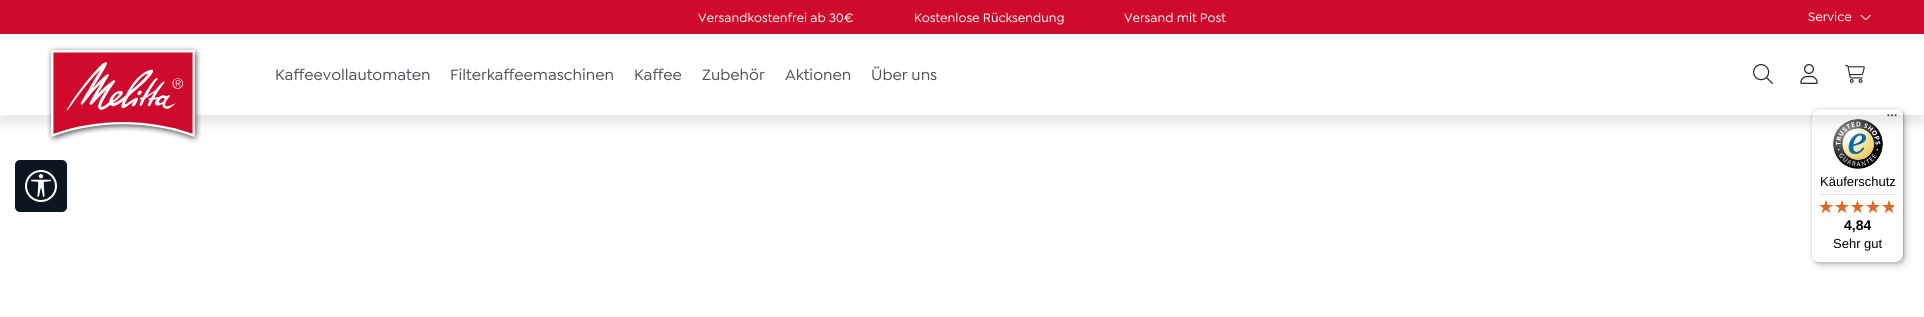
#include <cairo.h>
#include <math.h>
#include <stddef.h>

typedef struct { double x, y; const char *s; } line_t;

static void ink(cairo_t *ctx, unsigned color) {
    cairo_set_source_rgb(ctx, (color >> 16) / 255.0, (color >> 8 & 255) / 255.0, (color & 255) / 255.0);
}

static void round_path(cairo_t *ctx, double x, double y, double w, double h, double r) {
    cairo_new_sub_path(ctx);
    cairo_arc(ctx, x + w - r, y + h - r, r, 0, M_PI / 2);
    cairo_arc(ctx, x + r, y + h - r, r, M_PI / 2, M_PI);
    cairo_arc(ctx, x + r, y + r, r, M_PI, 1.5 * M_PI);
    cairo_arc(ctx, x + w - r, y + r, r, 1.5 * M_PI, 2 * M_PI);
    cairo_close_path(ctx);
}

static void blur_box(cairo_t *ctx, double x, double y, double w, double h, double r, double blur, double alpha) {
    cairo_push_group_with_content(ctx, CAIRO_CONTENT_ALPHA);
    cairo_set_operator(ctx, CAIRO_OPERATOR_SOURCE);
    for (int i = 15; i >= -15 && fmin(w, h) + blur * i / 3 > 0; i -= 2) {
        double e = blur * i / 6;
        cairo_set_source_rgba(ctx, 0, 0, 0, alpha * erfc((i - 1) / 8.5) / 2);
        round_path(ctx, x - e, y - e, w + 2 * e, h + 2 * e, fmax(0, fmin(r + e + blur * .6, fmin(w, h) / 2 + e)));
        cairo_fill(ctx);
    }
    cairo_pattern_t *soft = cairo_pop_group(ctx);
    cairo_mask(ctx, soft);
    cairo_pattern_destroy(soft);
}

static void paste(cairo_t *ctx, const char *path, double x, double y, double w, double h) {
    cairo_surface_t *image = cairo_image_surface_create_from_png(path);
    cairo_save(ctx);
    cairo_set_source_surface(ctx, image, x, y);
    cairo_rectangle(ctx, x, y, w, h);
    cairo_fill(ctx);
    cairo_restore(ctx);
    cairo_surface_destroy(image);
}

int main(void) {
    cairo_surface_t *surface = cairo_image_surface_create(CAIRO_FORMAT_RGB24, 1924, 317);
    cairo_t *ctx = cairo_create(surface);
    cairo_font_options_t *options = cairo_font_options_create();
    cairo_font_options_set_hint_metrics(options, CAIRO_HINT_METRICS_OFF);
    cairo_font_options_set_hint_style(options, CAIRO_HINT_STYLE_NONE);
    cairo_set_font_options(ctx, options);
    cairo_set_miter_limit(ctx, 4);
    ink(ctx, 0xFFFFFF);
    cairo_paint(ctx);
    ink(ctx, 0x000000);
    blur_box(ctx, 1814, 111, 93, 155, 8, 4, 0.15);
    blur_box(ctx, 1812, 109, 93, 155, 8, 1, 0.15);
    ink(ctx, 0xFFFFFF);
    round_path(ctx, 1811, 108, 93, 155, 8);
    cairo_fill(ctx);
    ink(ctx, 0xE5E5E5);
    cairo_new_path(ctx);
    cairo_move_to(ctx, 1820, 109);
    cairo_line_to(ctx, 1897, 109);
    cairo_curve_to(ctx, 1899, 109, 1901, 110, 1903, 112);
    cairo_curve_to(ctx, 1901, 110, 1899, 108, 1896, 108);
    cairo_line_to(ctx, 1819, 108);
    cairo_curve_to(ctx, 1815, 108, 1811, 112, 1811, 116);
    cairo_line_to(ctx, 1811, 255);
    cairo_curve_to(ctx, 1811, 258, 1813, 260, 1815, 262);
    cairo_curve_to(ctx, 1813, 260, 1812, 258, 1812, 256);
    cairo_line_to(ctx, 1812, 117);
    cairo_curve_to(ctx, 1812, 113, 1816, 109, 1820, 109);
    cairo_close_path(ctx);
    cairo_fill(ctx);
    ink(ctx, 0xCCCCCC);
    cairo_new_path(ctx);
    cairo_move_to(ctx, 1812, 259);
    cairo_curve_to(ctx, 1814, 261, 1816, 263, 1819, 263);
    cairo_line_to(ctx, 1896, 263);
    cairo_curve_to(ctx, 1900, 263, 1904, 259, 1904, 255);
    cairo_line_to(ctx, 1904, 116);
    cairo_curve_to(ctx, 1904, 113, 1902, 111, 1900, 109);
    cairo_curve_to(ctx, 1902, 111, 1903, 113, 1903, 115);
    cairo_line_to(ctx, 1903, 254);
    cairo_curve_to(ctx, 1903, 258, 1899, 262, 1895, 262);
    cairo_line_to(ctx, 1818, 262);
    cairo_curve_to(ctx, 1816, 262, 1814, 261, 1812, 259);
    cairo_close_path(ctx);
    cairo_fill(ctx);
    cairo_set_source_rgba(ctx, 0.196, 0.196, 0.196, 0.2);
    cairo_new_path(ctx);
    cairo_move_to(ctx, 1813, 260);
    cairo_curve_to(ctx, 1814, 262, 1817, 263, 1819, 263);
    cairo_line_to(ctx, 1896, 263);
    cairo_curve_to(ctx, 1900, 263, 1904, 259, 1904, 255);
    cairo_line_to(ctx, 1904, 116);
    cairo_curve_to(ctx, 1904, 114, 1903, 111, 1901, 110);
    cairo_curve_to(ctx, 1902, 111, 1903, 113, 1903, 115);
    cairo_line_to(ctx, 1903, 254);
    cairo_curve_to(ctx, 1903, 259, 1900, 262, 1895, 262);
    cairo_line_to(ctx, 1818, 262);
    cairo_curve_to(ctx, 1816, 262, 1814, 261, 1813, 260);
    cairo_close_path(ctx);
    cairo_fill(ctx);
    paste(ctx, "media/7.png", 1887, 114, 10, 3);
    paste(ctx, "media/8.png", 1833, 119, 50, 50);
    cairo_save(ctx);
    cairo_rectangle(ctx, 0, 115, 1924, 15);
    cairo_clip(ctx);
    ink(ctx, 0x6B6B6B);
    blur_box(ctx, 0, 8, 1924, 115, 0, 6, 0.17);
    cairo_restore(ctx);
    ink(ctx, 0xCF0A2C);
    cairo_rectangle(ctx, 0, 0, 1924, 34);
    cairo_fill(ctx);
    cairo_select_font_face(ctx, "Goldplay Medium", CAIRO_FONT_SLANT_NORMAL, CAIRO_FONT_WEIGHT_NORMAL);
    cairo_set_font_size(ctx, 13);
    ink(ctx, 0xFFFFFF);
    {
        static const line_t items[] = {
            {698, 22, "Versandkostenfrei ab 30€"},
            {914, 22, "Kostenlose Rücksendung"},
            {1124, 22, "Versand mit Post"},
            {1808, 21, "Service"},
        };
        for (size_t i = 0; i < sizeof items / sizeof *items; i++) {
            cairo_move_to(ctx, items[i].x, items[i].y);
            cairo_show_text(ctx, items[i].s);
        }
    }
    paste(ctx, "media/1.png", 1860, 15, 11, 5);
    paste(ctx, "media/2.png", 47, 46, 154, 97);
    cairo_set_font_size(ctx, 16);
    ink(ctx, 0x505358);
    {
        static const line_t items[] = {
            {275, 80, "Kaffeevollautomaten"},
            {450, 80, "Filterkaffeemaschinen"},
            {634, 80, "Kaffee"},
            {702, 80, "Zubehör"},
            {785, 80, "Aktionen"},
            {871, 80, "Über uns"},
        };
        for (size_t i = 0; i < sizeof items / sizeof *items; i++) {
            cairo_move_to(ctx, items[i].x, items[i].y);
            cairo_show_text(ctx, items[i].s);
        }
    }
    paste(ctx, "media/3.png", 1753, 64, 20, 20);
    paste(ctx, "media/4.png", 1800, 64, 18, 20);
    paste(ctx, "media/5.png", 1845, 65, 20, 18);
    ink(ctx, 0x0C1620);
    round_path(ctx, 15, 160, 52, 52, 5);
    cairo_fill(ctx);
    paste(ctx, "media/6.png", 25, 170, 32, 32);
    cairo_set_source_rgba(ctx, 1, 1, 1, 0.3);
    cairo_new_path(ctx);
    cairo_move_to(ctx, 1813, 260);
    cairo_curve_to(ctx, 1814, 262, 1817, 263, 1819, 263);
    cairo_line_to(ctx, 1896, 263);
    cairo_curve_to(ctx, 1900, 263, 1904, 259, 1904, 255);
    cairo_line_to(ctx, 1904, 254);
    cairo_curve_to(ctx, 1904, 259, 1900, 262, 1896, 262);
    cairo_line_to(ctx, 1818, 262);
    cairo_curve_to(ctx, 1816, 262, 1814, 261, 1813, 260);
    cairo_close_path(ctx);
    cairo_fill(ctx);
    cairo_select_font_face(ctx, "Liberation Sans", CAIRO_FONT_SLANT_NORMAL, CAIRO_FONT_WEIGHT_NORMAL);
    cairo_set_font_size(ctx, 13);
    ink(ctx, 0x000000);
    cairo_move_to(ctx, 1820, 186);
    cairo_show_text(ctx, "Käuferschutz");
    ink(ctx, 0xE5E5E5);
    cairo_rectangle(ctx, 1819, 194, 77, 1);
    cairo_fill(ctx);
    paste(ctx, "media/9.png", 1819, 200, 14, 13);
    paste(ctx, "media/9.png", 1835, 200, 14, 13);
    paste(ctx, "media/10.png", 1851, 200, 13, 13);
    paste(ctx, "media/9.png", 1866, 200, 14, 13);
    paste(ctx, "media/9.png", 1882, 200, 14, 13);
    paste(ctx, "media/11.png", 1819, 200, 14, 13);
    paste(ctx, "media/11.png", 1835, 200, 14, 13);
    paste(ctx, "media/12.png", 1851, 200, 13, 13);
    paste(ctx, "media/11.png", 1866, 200, 14, 13);
    paste(ctx, "media/13.png", 1882, 200, 12, 13);
    cairo_select_font_face(ctx, "Liberation Sans", CAIRO_FONT_SLANT_NORMAL, CAIRO_FONT_WEIGHT_BOLD);
    cairo_set_font_size(ctx, 14);
    ink(ctx, 0x000000);
    cairo_move_to(ctx, 1844, 230);
    cairo_show_text(ctx, "4,84");
    cairo_select_font_face(ctx, "Liberation Sans", CAIRO_FONT_SLANT_NORMAL, CAIRO_FONT_WEIGHT_NORMAL);
    cairo_set_font_size(ctx, 13);
    cairo_move_to(ctx, 1833, 248);
    cairo_show_text(ctx, "Sehr gut");
    cairo_surface_write_to_png(surface, "image.png");
    cairo_font_options_destroy(options);
    cairo_destroy(ctx);
    cairo_surface_destroy(surface);
    return 0;
}
